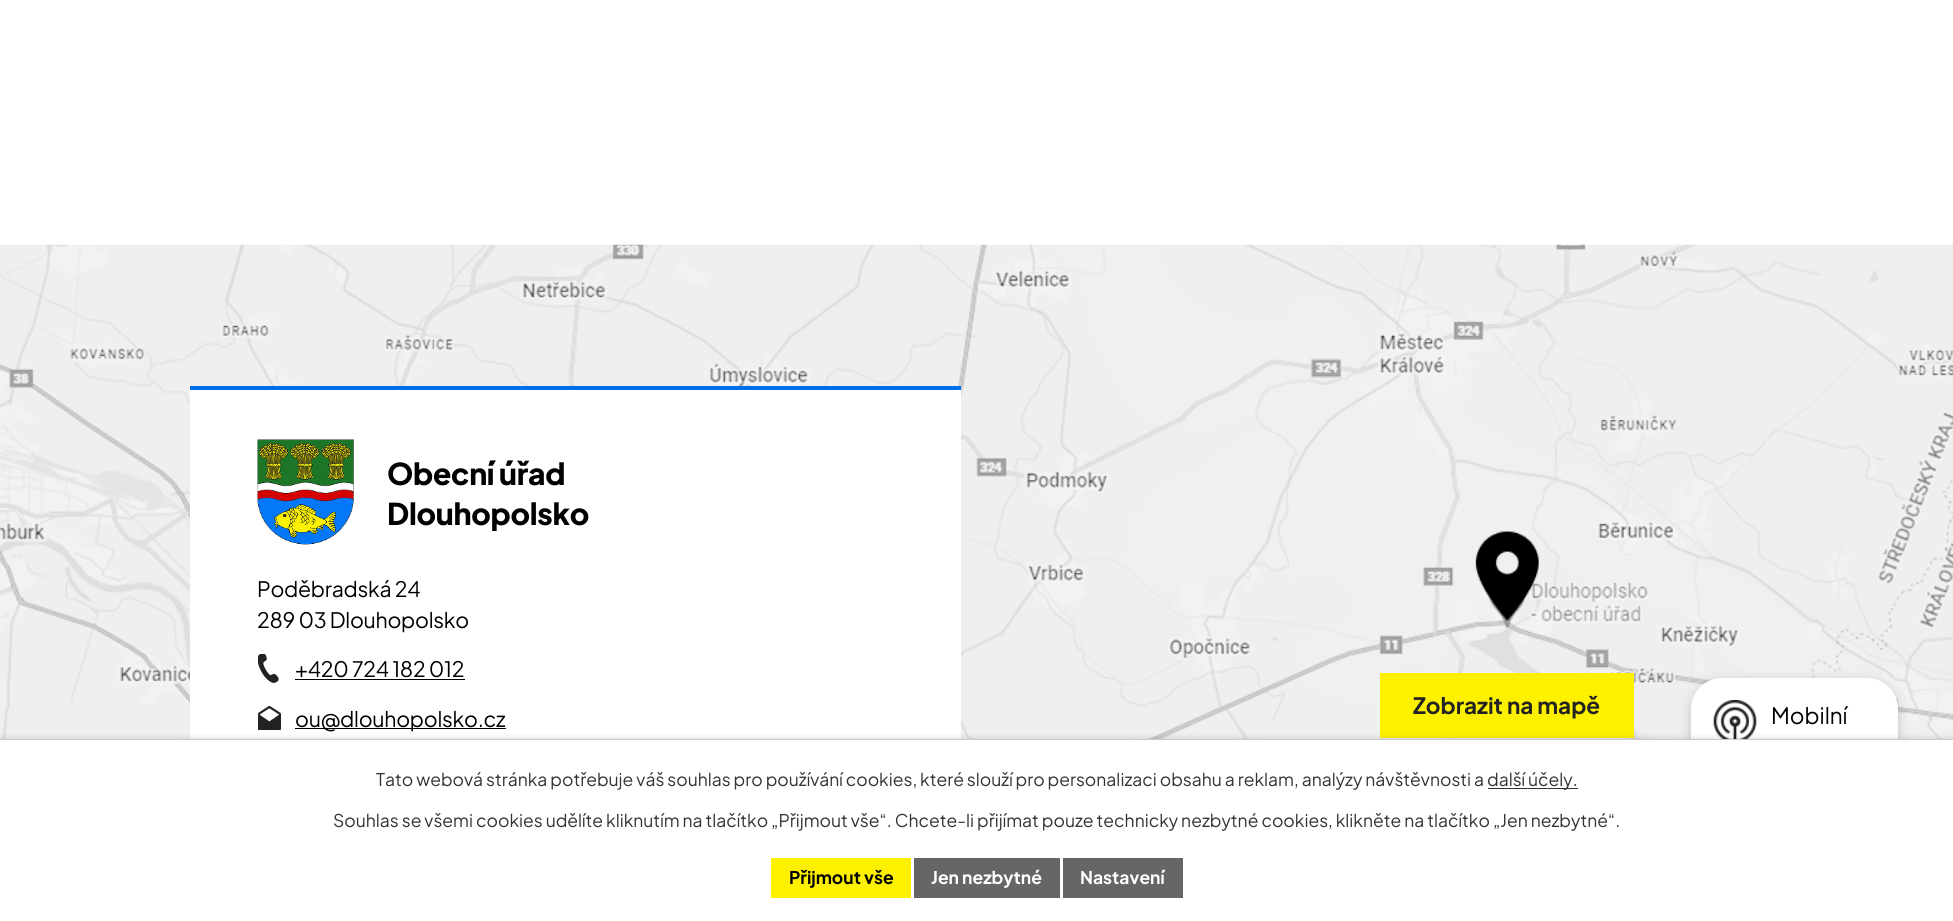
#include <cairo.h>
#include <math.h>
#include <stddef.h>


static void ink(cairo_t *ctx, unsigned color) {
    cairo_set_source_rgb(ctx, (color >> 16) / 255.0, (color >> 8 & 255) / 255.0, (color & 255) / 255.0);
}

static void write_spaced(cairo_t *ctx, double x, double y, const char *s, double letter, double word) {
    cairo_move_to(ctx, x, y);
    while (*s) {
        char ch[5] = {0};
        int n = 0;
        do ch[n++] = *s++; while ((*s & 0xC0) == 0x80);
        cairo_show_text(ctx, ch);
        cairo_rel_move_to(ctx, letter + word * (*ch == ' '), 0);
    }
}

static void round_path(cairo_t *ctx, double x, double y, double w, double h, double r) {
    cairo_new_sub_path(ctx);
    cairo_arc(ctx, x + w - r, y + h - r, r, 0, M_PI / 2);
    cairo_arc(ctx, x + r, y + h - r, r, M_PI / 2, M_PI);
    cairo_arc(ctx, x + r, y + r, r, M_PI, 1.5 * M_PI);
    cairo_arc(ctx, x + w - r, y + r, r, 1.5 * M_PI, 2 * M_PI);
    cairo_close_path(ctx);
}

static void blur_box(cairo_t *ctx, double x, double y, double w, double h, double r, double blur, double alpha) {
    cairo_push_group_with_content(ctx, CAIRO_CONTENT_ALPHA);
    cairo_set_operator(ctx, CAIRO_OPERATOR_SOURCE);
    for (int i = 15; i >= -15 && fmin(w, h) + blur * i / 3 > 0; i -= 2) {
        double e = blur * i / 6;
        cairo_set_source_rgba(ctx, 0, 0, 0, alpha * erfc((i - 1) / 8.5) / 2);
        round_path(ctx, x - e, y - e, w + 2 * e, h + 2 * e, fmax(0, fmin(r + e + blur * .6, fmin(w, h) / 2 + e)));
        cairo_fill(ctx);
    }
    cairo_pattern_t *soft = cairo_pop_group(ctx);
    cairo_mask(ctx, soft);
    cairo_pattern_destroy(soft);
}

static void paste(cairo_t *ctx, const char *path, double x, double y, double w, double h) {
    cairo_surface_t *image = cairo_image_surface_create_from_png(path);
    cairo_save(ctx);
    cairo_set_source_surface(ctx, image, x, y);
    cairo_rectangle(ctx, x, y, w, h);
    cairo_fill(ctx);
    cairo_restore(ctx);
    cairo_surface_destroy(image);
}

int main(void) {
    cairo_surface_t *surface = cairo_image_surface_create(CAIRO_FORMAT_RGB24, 1953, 921);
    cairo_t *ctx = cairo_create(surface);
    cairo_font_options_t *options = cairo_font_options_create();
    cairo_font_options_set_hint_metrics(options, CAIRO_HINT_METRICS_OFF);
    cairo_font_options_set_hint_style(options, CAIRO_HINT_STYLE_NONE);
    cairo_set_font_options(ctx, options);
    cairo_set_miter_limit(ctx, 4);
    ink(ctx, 0xFFFFFF);
    cairo_paint(ctx);
    paste(ctx, "media/4.png", 0, 244, 1953, 495);
    ink(ctx, 0xFFFFFF);
    cairo_rectangle(ctx, 190, 390, 771, 349);
    cairo_fill(ctx);
    ink(ctx, 0x006EEA);
    cairo_rectangle(ctx, 190, 386, 771, 4);
    cairo_fill(ctx);
    paste(ctx, "media/1.png", 257, 439, 97, 106);
    cairo_select_font_face(ctx, "Plus Jakarta Sans ExtraBold", CAIRO_FONT_SLANT_NORMAL, CAIRO_FONT_WEIGHT_NORMAL);
    cairo_set_font_size(ctx, 30);
    ink(ctx, 0x000000);
    write_spaced(ctx, 387, 485, "Obecní úřad", -0.25, 0);
    write_spaced(ctx, 387, 525, "Dlouhopolsko", -0.25, 0);
    cairo_select_font_face(ctx, "Plus Jakarta Sans", CAIRO_FONT_SLANT_NORMAL, CAIRO_FONT_WEIGHT_NORMAL);
    cairo_set_font_size(ctx, 21.25);
    write_spaced(ctx, 257, 597, "Poděbradská 24", -0.25, 0);
    write_spaced(ctx, 257, 628, "289 03 Dlouhopolsko", -0.25, 0);
    paste(ctx, "media/2.png", 258, 654, 21, 29);
    write_spaced(ctx, 295, 677, "+420 724 182 012", -0.25, 0);
    cairo_rectangle(ctx, 295, 679, 170, 1);
    cairo_fill(ctx);
    paste(ctx, "media/3.png", 258, 706, 23, 24);
    cairo_rectangle(ctx, 295, 728, 211, 1);
    cairo_fill(ctx);
    write_spaced(ctx, 295, 727, "ou@dlouhopolsko.cz", -0.25, 0);
    ink(ctx, 0xFEF100);
    cairo_rectangle(ctx, 1380, 673, 254, 65);
    cairo_fill(ctx);
    cairo_select_font_face(ctx, "Plus Jakarta Sans", CAIRO_FONT_SLANT_NORMAL, CAIRO_FONT_WEIGHT_BOLD);
    cairo_set_font_size(ctx, 22.5);
    ink(ctx, 0x222222);
    cairo_move_to(ctx, 1413, 714);
    cairo_show_text(ctx, "Zobrazit na mapě");
    ink(ctx, 0x000000);
    blur_box(ctx, 1691, 681, 207, 188, 31, 6, 0.2);
    ink(ctx, 0xFFFFFF);
    round_path(ctx, 1691, 678, 207, 187, 31);
    cairo_fill(ctx);
    paste(ctx, "media/5.png", 1713, 700, 44, 39);
    cairo_select_font_face(ctx, "Plus Jakarta Sans", CAIRO_FONT_SLANT_NORMAL, CAIRO_FONT_WEIGHT_NORMAL);
    ink(ctx, 0x000000);
    cairo_move_to(ctx, 1771, 724);
    cairo_show_text(ctx, "Mobilní");
    ink(ctx, 0x000000);
    blur_box(ctx, 0, 739, 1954, 182, 0, 3, 0.2);
    ink(ctx, 0xFFFFFF);
    cairo_rectangle(ctx, 0, 740, 1953, 181);
    cairo_fill(ctx);
    ink(ctx, 0xCCCCCC);
    cairo_rectangle(ctx, 0, 739, 1953, 1);
    cairo_fill(ctx);
    cairo_set_font_size(ctx, 17.5);
    ink(ctx, 0x333333);
    cairo_move_to(ctx, 376, 786);
    cairo_show_text(ctx, "Tato webová stránka potřebuje váš souhlas pro používání cookies, které slouží pro personalizaci obsahu a reklam, analýzy návštěvnosti a");
    cairo_rectangle(ctx, 1488, 788, 90, 1);
    cairo_fill(ctx);
    cairo_move_to(ctx, 1487, 786);
    cairo_show_text(ctx, "další účely.");
    cairo_move_to(ctx, 333, 827);
    cairo_show_text(ctx, "Souhlas se všemi cookies udělíte kliknutím na tlačítko „Přijmout vše“. Chcete-li přijímat pouze technicky nezbytné cookies, klikněte na tlačítko „Jen nezbytné“.");
    ink(ctx, 0xFEF100);
    cairo_rectangle(ctx, 771, 858, 140, 40);
    cairo_fill(ctx);
    cairo_select_font_face(ctx, "Plus Jakarta Sans", CAIRO_FONT_SLANT_NORMAL, CAIRO_FONT_WEIGHT_BOLD);
    ink(ctx, 0x000000);
    cairo_move_to(ctx, 789, 884);
    cairo_show_text(ctx, "Přijmout vše");
    ink(ctx, 0x666666);
    cairo_rectangle(ctx, 914, 858, 146, 40);
    cairo_fill(ctx);
    ink(ctx, 0xFFFFFF);
    cairo_move_to(ctx, 931, 884);
    cairo_show_text(ctx, "Jen nezbytné");
    ink(ctx, 0x666666);
    cairo_rectangle(ctx, 1063, 858, 120, 40);
    cairo_fill(ctx);
    ink(ctx, 0xFFFFFF);
    cairo_move_to(ctx, 1080, 884);
    cairo_show_text(ctx, "Nastavení");
    cairo_surface_write_to_png(surface, "image.png");
    cairo_font_options_destroy(options);
    cairo_destroy(ctx);
    cairo_surface_destroy(surface);
    return 0;
}
